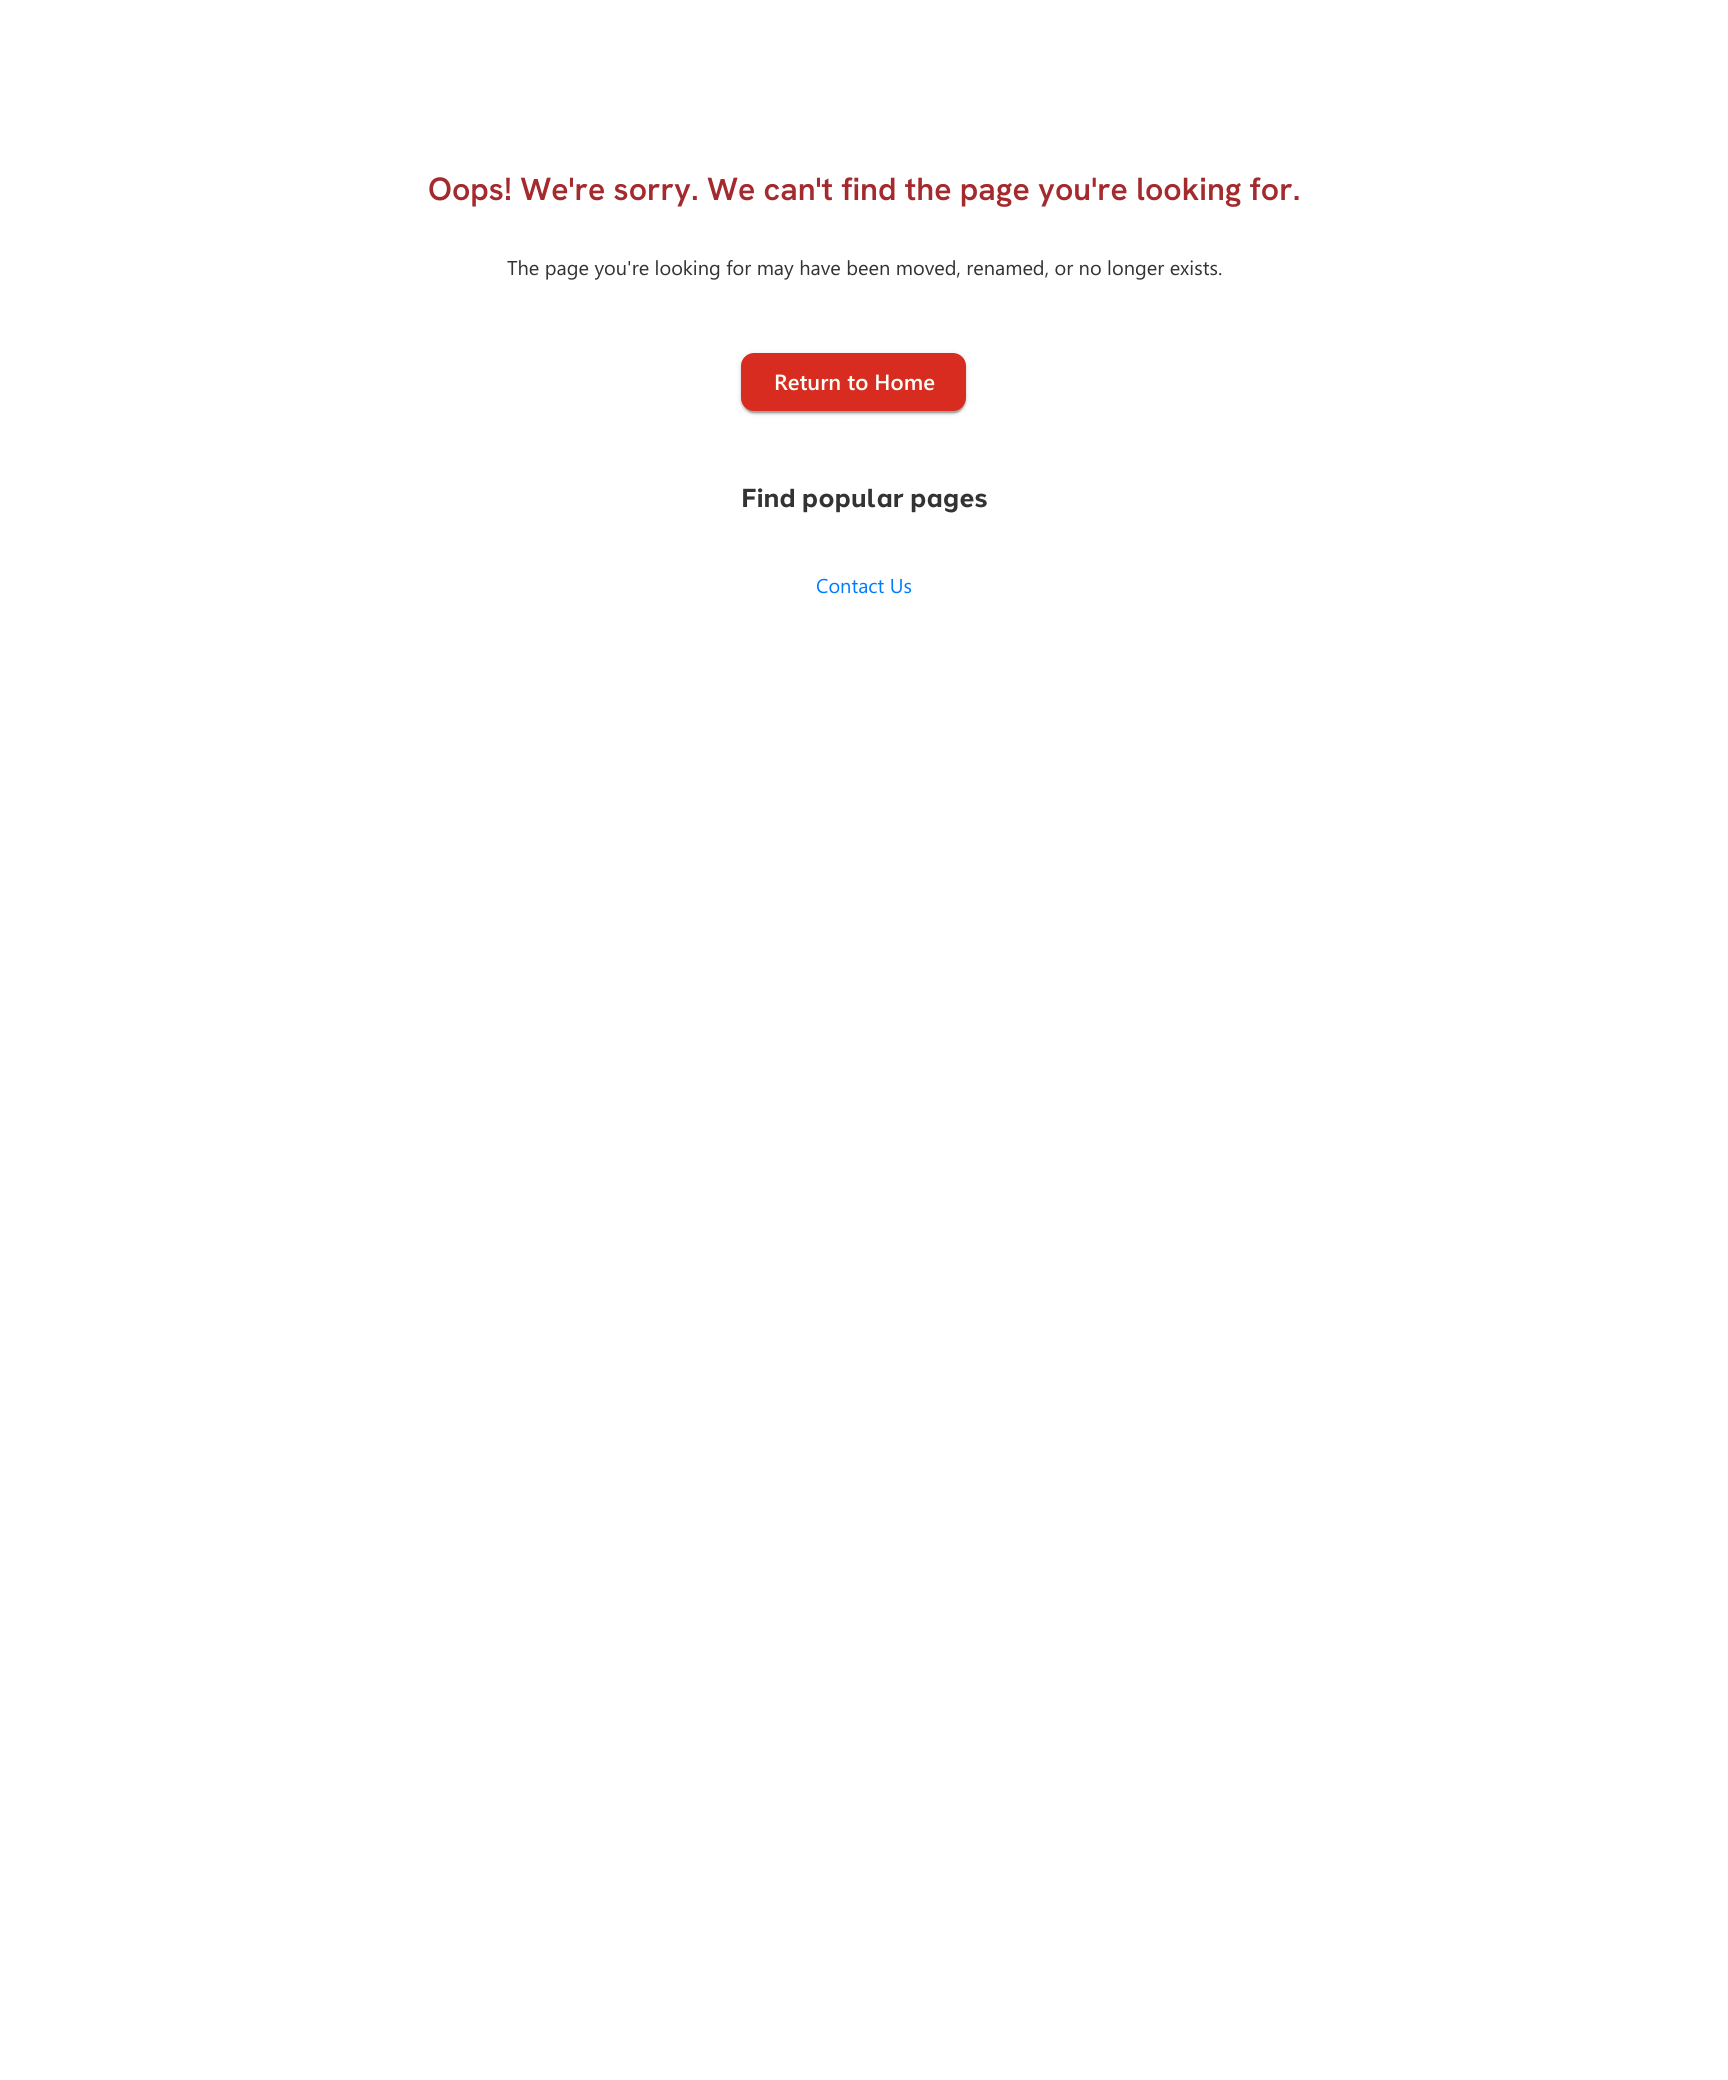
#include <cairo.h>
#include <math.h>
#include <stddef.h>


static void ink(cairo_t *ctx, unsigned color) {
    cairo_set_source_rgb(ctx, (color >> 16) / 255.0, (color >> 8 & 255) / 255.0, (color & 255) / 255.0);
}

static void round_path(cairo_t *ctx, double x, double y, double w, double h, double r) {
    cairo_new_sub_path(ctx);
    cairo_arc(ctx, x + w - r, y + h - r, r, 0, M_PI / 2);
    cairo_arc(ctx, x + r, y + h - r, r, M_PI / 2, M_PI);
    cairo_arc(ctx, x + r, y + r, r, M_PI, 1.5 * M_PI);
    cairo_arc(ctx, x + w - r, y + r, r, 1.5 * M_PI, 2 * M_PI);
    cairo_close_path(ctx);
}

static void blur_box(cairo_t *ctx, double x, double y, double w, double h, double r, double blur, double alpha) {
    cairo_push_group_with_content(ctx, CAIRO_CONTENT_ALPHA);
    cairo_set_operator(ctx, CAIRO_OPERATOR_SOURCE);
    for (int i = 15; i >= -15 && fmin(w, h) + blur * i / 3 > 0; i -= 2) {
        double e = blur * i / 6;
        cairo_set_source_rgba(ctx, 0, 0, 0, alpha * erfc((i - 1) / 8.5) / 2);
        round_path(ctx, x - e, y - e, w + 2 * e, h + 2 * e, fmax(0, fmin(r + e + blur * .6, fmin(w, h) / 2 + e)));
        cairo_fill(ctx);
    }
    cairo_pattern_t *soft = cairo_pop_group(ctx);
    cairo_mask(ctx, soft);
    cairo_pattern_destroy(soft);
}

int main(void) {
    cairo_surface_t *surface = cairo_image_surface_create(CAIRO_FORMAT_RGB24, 1728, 2080);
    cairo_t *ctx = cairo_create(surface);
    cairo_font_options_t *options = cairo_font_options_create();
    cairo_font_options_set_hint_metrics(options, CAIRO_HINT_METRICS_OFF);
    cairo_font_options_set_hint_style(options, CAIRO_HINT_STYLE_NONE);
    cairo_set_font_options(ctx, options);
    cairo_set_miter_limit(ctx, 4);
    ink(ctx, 0xFFFFFF);
    cairo_paint(ctx);
    cairo_select_font_face(ctx, "Hanken Grotesk SemiBold", CAIRO_FONT_SLANT_NORMAL, CAIRO_FONT_WEIGHT_NORMAL);
    cairo_set_font_size(ctx, 32);
    ink(ctx, 0xA42A2E);
    cairo_move_to(ctx, 428, 200);
    cairo_show_text(ctx, "Oops! We're sorry. We can't find the page you're looking for.");
    cairo_select_font_face(ctx, "Segoe UI", CAIRO_FONT_SLANT_NORMAL, CAIRO_FONT_WEIGHT_NORMAL);
    cairo_set_font_size(ctx, 20);
    ink(ctx, 0x333333);
    cairo_move_to(ctx, 507, 275);
    cairo_show_text(ctx, "The page you're looking for may have been moved, renamed, or no longer exists.");
    ink(ctx, 0x000000);
    blur_box(ctx, 741, 354, 225, 59, 13, 3, 0.12);
    blur_box(ctx, 741, 355, 225, 59, 13, 1, 0.14);
    blur_box(ctx, 744, 359, 220, 54, 10, 0.5, 0.2);
    ink(ctx, 0xD82C20);
    round_path(ctx, 742.5, 354.5, 222, 55, 11.5);
    cairo_fill_preserve(ctx);
    cairo_set_line_width(ctx, 3);
    cairo_stroke(ctx);
    cairo_select_font_face(ctx, "Segoe UI SemiBold", CAIRO_FONT_SLANT_NORMAL, CAIRO_FONT_WEIGHT_NORMAL);
    cairo_set_font_size(ctx, 22);
    ink(ctx, 0xFFFEF9);
    cairo_move_to(ctx, 774, 390);
    cairo_show_text(ctx, "Return to Home");
    cairo_select_font_face(ctx, "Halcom", CAIRO_FONT_SLANT_NORMAL, CAIRO_FONT_WEIGHT_BOLD);
    cairo_set_font_size(ctx, 26);
    ink(ctx, 0x333333);
    cairo_move_to(ctx, 741, 507);
    cairo_show_text(ctx, "Find popular pages");
    cairo_select_font_face(ctx, "Segoe UI", CAIRO_FONT_SLANT_NORMAL, CAIRO_FONT_WEIGHT_NORMAL);
    cairo_set_font_size(ctx, 20);
    ink(ctx, 0x007BFF);
    cairo_move_to(ctx, 816, 593);
    cairo_show_text(ctx, "Contact Us");
    cairo_surface_write_to_png(surface, "image.png");
    cairo_font_options_destroy(options);
    cairo_destroy(ctx);
    cairo_surface_destroy(surface);
    return 0;
}
